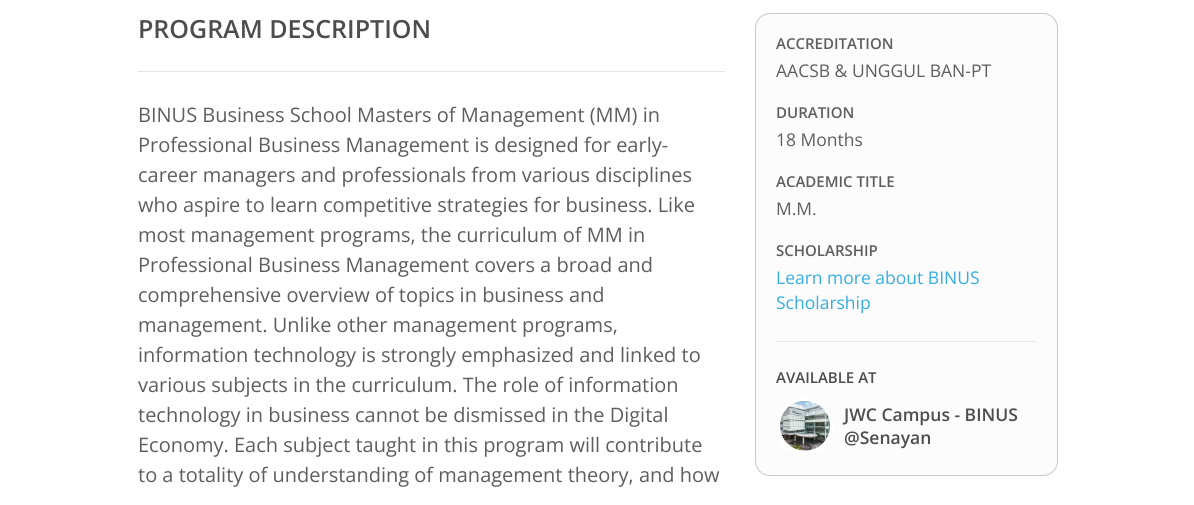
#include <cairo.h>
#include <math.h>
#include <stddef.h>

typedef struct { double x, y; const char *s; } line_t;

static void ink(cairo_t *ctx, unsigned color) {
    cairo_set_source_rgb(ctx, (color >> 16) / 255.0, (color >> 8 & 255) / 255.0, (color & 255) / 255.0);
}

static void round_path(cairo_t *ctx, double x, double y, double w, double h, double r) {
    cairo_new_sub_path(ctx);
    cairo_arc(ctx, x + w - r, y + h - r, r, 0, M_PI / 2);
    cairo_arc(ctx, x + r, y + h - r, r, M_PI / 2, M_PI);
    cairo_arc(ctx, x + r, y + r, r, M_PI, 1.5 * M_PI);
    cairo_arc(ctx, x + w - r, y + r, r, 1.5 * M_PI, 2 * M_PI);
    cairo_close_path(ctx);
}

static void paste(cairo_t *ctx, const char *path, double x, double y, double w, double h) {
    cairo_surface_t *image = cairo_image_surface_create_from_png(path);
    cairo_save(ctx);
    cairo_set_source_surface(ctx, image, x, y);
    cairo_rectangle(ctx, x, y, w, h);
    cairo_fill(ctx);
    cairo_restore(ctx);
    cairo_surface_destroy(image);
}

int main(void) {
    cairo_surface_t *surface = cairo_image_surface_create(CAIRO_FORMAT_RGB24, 1194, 505);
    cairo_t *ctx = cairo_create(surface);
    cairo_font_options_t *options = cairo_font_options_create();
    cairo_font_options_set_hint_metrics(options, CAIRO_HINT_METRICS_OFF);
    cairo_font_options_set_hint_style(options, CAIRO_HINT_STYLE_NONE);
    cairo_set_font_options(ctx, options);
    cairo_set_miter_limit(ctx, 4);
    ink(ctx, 0xFFFFFF);
    cairo_paint(ctx);
    cairo_select_font_face(ctx, "Open Sans SemiBold", CAIRO_FONT_SLANT_NORMAL, CAIRO_FONT_WEIGHT_NORMAL);
    cairo_set_font_size(ctx, 25);
    ink(ctx, 0x4D4D4D);
    cairo_move_to(ctx, 138, 38);
    cairo_show_text(ctx, "PROGRAM DESCRIPTION");
    ink(ctx, 0xE5E5E5);
    cairo_rectangle(ctx, 138, 71, 587, 1);
    cairo_fill(ctx);
    cairo_select_font_face(ctx, "Open Sans", CAIRO_FONT_SLANT_NORMAL, CAIRO_FONT_WEIGHT_NORMAL);
    cairo_set_font_size(ctx, 20);
    ink(ctx, 0x5E5E5E);
    {
        static const line_t items[] = {
            {138, 122, "BINUS Business School Masters of Management (MM) in"},
            {138, 152, "Professional Business Management is designed for early-"},
            {138, 182, "career managers and professionals from various disciplines"},
            {138, 212, "who aspire to learn competitive strategies for business. Like"},
            {138, 242, "most management programs, the curriculum of MM in"},
            {138, 272, "Professional Business Management covers a broad and"},
            {138, 302, "comprehensive overview of topics in business and"},
            {138, 332, "management. Unlike other management programs,"},
            {138, 362, "information technology is strongly emphasized and linked to"},
            {138, 392, "various subjects in the curriculum. The role of information"},
            {138, 422, "technology in business cannot be dismissed in the Digital"},
            {138, 452, "Economy. Each subject taught in this program will contribute"},
            {138, 482, "to a totality of understanding of management theory, and how"},
        };
        for (size_t i = 0; i < sizeof items / sizeof *items; i++) {
            cairo_move_to(ctx, items[i].x, items[i].y);
            cairo_show_text(ctx, items[i].s);
        }
    }
    ink(ctx, 0xFCFCFC);
    round_path(ctx, 755.5, 13.5, 302, 462, 14.5);
    cairo_fill_preserve(ctx);
    ink(ctx, 0xC9C9C9);
    cairo_set_line_width(ctx, 1);
    cairo_stroke(ctx);
    cairo_select_font_face(ctx, "Open Sans SemiBold", CAIRO_FONT_SLANT_NORMAL, CAIRO_FONT_WEIGHT_NORMAL);
    cairo_set_font_size(ctx, 15);
    ink(ctx, 0x5E5E5E);
    cairo_move_to(ctx, 776, 49);
    cairo_show_text(ctx, "ACCREDITATION");
    cairo_select_font_face(ctx, "Open Sans", CAIRO_FONT_SLANT_NORMAL, CAIRO_FONT_WEIGHT_NORMAL);
    cairo_set_font_size(ctx, 17.5);
    cairo_move_to(ctx, 776, 77);
    cairo_show_text(ctx, "AACSB & UNGGUL BAN-PT");
    cairo_select_font_face(ctx, "Open Sans SemiBold", CAIRO_FONT_SLANT_NORMAL, CAIRO_FONT_WEIGHT_NORMAL);
    cairo_set_font_size(ctx, 15);
    cairo_move_to(ctx, 776, 118);
    cairo_show_text(ctx, "DURATION");
    cairo_select_font_face(ctx, "Open Sans", CAIRO_FONT_SLANT_NORMAL, CAIRO_FONT_WEIGHT_NORMAL);
    cairo_set_font_size(ctx, 17.5);
    cairo_move_to(ctx, 776, 146);
    cairo_show_text(ctx, "18 Months");
    cairo_select_font_face(ctx, "Open Sans SemiBold", CAIRO_FONT_SLANT_NORMAL, CAIRO_FONT_WEIGHT_NORMAL);
    cairo_set_font_size(ctx, 15);
    cairo_move_to(ctx, 776, 187);
    cairo_show_text(ctx, "ACADEMIC TITLE");
    cairo_select_font_face(ctx, "Open Sans", CAIRO_FONT_SLANT_NORMAL, CAIRO_FONT_WEIGHT_NORMAL);
    cairo_set_font_size(ctx, 17.5);
    cairo_move_to(ctx, 776, 215);
    cairo_show_text(ctx, "M.M.");
    cairo_select_font_face(ctx, "Open Sans SemiBold", CAIRO_FONT_SLANT_NORMAL, CAIRO_FONT_WEIGHT_NORMAL);
    cairo_set_font_size(ctx, 15);
    cairo_move_to(ctx, 776, 256);
    cairo_show_text(ctx, "SCHOLARSHIP");
    cairo_select_font_face(ctx, "Open Sans", CAIRO_FONT_SLANT_NORMAL, CAIRO_FONT_WEIGHT_NORMAL);
    cairo_set_font_size(ctx, 17.5);
    ink(ctx, 0x34AEE2);
    cairo_move_to(ctx, 776, 284);
    cairo_show_text(ctx, "Learn more about BINUS");
    cairo_move_to(ctx, 776, 309);
    cairo_show_text(ctx, "Scholarship");
    ink(ctx, 0xE5E5E5);
    cairo_rectangle(ctx, 776, 341, 260, 1);
    cairo_fill(ctx);
    cairo_select_font_face(ctx, "Open Sans SemiBold", CAIRO_FONT_SLANT_NORMAL, CAIRO_FONT_WEIGHT_NORMAL);
    cairo_set_font_size(ctx, 15);
    ink(ctx, 0x4D4D4D);
    cairo_move_to(ctx, 776, 383);
    cairo_show_text(ctx, "AVAILABLE AT");
    round_path(ctx, 778, 400, 54, 53, 26.5);
    ink(ctx, 0xFFFFFF);
    cairo_set_line_width(ctx, 4);
    cairo_stroke(ctx);
    paste(ctx, "media/1.png", 780, 400, 50, 51);
    cairo_set_font_size(ctx, 17.5);
    ink(ctx, 0x4D4D4D);
    cairo_move_to(ctx, 844, 421);
    cairo_show_text(ctx, "JWC Campus - BINUS");
    cairo_move_to(ctx, 844, 444);
    cairo_show_text(ctx, "@Senayan");
    cairo_surface_write_to_png(surface, "image.png");
    cairo_font_options_destroy(options);
    cairo_destroy(ctx);
    cairo_surface_destroy(surface);
    return 0;
}
